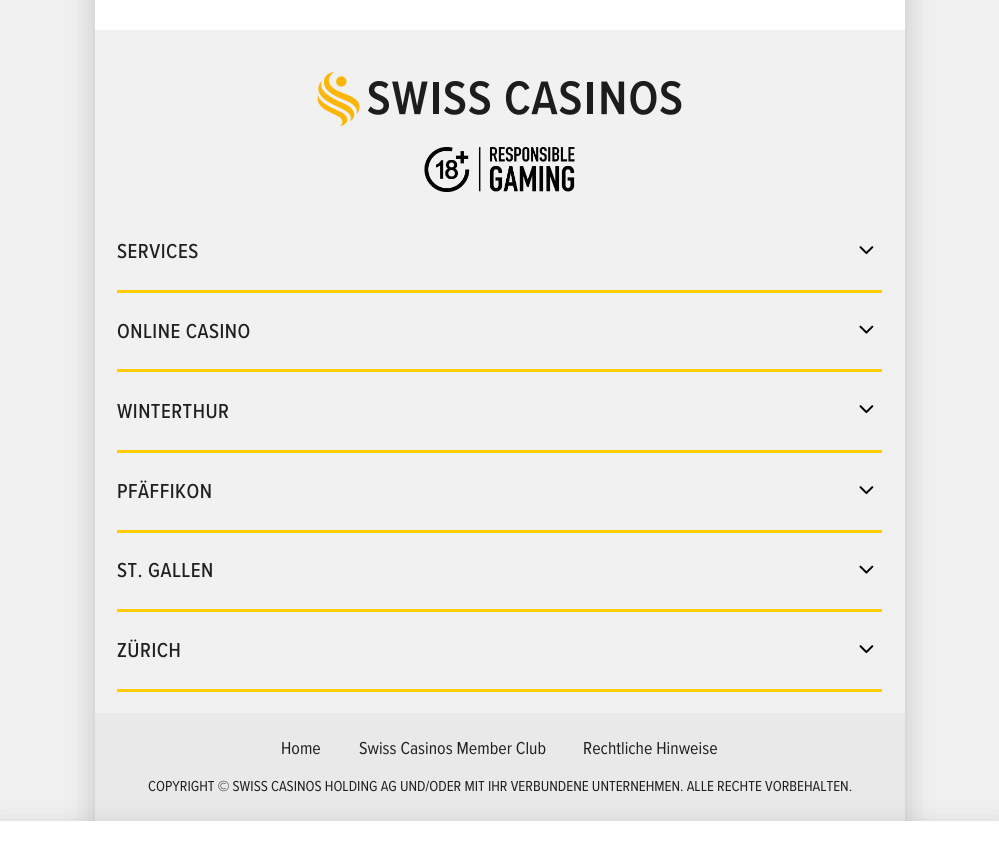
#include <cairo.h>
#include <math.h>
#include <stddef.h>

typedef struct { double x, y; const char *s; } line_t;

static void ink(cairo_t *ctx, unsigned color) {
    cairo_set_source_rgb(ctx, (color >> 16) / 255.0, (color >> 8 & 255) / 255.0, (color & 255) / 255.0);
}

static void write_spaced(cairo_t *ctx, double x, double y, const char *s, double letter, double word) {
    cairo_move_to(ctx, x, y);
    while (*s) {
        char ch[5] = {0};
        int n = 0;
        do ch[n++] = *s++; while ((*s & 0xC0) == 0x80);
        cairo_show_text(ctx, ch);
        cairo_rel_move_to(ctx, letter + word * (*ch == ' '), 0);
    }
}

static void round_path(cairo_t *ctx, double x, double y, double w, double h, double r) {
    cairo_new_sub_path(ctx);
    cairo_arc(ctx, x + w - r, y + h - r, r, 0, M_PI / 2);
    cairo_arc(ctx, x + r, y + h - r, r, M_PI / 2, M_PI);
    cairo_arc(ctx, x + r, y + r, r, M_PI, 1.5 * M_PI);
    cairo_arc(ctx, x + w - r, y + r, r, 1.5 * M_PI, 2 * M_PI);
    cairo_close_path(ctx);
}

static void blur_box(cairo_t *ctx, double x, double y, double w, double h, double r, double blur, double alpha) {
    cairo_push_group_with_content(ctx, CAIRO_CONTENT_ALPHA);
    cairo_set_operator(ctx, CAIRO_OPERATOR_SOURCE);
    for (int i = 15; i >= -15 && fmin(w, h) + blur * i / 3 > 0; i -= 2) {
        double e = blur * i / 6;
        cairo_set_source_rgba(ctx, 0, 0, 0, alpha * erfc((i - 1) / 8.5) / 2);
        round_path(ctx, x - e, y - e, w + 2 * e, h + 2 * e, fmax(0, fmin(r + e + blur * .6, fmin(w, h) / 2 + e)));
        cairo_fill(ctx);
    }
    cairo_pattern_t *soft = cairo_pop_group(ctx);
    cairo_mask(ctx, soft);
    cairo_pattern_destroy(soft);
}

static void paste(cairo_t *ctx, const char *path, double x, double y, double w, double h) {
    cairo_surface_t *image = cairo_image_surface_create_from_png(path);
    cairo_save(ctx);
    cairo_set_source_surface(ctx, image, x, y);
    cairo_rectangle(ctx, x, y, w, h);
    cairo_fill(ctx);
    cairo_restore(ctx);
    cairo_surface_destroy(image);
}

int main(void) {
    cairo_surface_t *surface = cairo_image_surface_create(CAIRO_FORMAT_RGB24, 999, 862);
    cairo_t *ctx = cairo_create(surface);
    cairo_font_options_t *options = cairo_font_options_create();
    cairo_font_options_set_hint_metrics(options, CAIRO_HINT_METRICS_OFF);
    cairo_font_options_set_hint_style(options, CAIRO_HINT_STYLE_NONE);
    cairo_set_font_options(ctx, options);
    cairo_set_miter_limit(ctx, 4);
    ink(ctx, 0xF1F1F1);
    cairo_paint(ctx);
    ink(ctx, 0x000000);
    blur_box(ctx, 95, -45, 810, 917, 0, 15, 0.2);
    ink(ctx, 0xFFFFFF);
    cairo_rectangle(ctx, 95, 0, 810, 30);
    cairo_fill(ctx);
    ink(ctx, 0xF1F1F1);
    cairo_rectangle(ctx, 95, 30, 810, 683);
    cairo_fill(ctx);
    paste(ctx, "media/1.png", 317, 72, 365, 54);
    paste(ctx, "media/2.png", 424, 147, 151, 45);
    ink(ctx, 0xFFCC00);
    cairo_rectangle(ctx, 117, 290, 765, 3);
    cairo_fill(ctx);
    cairo_select_font_face(ctx, "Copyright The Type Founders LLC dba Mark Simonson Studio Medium", CAIRO_FONT_SLANT_NORMAL, CAIRO_FONT_WEIGHT_NORMAL);
    cairo_set_font_size(ctx, 21);
    ink(ctx, 0x202020);
    write_spaced(ctx, 117, 258, "SERVICES", 0.5, 0);
    paste(ctx, "media/3.png", 859, 246, 15, 9);
    ink(ctx, 0xFFCC00);
    cairo_rectangle(ctx, 117, 369, 765, 3);
    cairo_fill(ctx);
    ink(ctx, 0x202020);
    write_spaced(ctx, 117, 338, "ONLINE CASINO", 0.5, 0);
    paste(ctx, "media/4.png", 859, 325, 15, 9);
    ink(ctx, 0xFFCC00);
    cairo_rectangle(ctx, 117, 450, 765, 3);
    cairo_fill(ctx);
    ink(ctx, 0x202020);
    write_spaced(ctx, 117, 418, "WINTERTHUR", 0.5, 0);
    paste(ctx, "media/3.png", 859, 405, 15, 9);
    ink(ctx, 0xFFCC00);
    cairo_rectangle(ctx, 117, 530, 765, 3);
    cairo_fill(ctx);
    ink(ctx, 0x202020);
    write_spaced(ctx, 117, 498, "PFÄFFIKON", 0.5, 0);
    paste(ctx, "media/3.png", 859, 486, 15, 9);
    ink(ctx, 0xFFCC00);
    cairo_rectangle(ctx, 117, 609, 765, 3);
    cairo_fill(ctx);
    ink(ctx, 0x202020);
    write_spaced(ctx, 117, 577, "ST. GALLEN", 0.5, 0);
    paste(ctx, "media/4.png", 859, 565, 15, 9);
    ink(ctx, 0xFFCC00);
    cairo_rectangle(ctx, 117, 689, 765, 3);
    cairo_fill(ctx);
    ink(ctx, 0x202020);
    write_spaced(ctx, 117, 657, "ZÜRICH", 0.5, 0);
    paste(ctx, "media/3.png", 859, 645, 15, 9);
    ink(ctx, 0xE9E9E9);
    cairo_rectangle(ctx, 95, 713, 810, 108);
    cairo_fill(ctx);
    cairo_select_font_face(ctx, "Copyright The Type Founders LLC dba Mark Simonson Studio", CAIRO_FONT_SLANT_NORMAL, CAIRO_FONT_WEIGHT_NORMAL);
    cairo_set_font_size(ctx, 18);
    ink(ctx, 0x202020);
    {
        static const line_t items[] = {
            {281, 754, "Home"},
            {359, 754, "Swiss Casinos Member Club"},
            {583, 754, "Rechtliche Hinweise"},
        };
        for (size_t i = 0; i < sizeof items / sizeof *items; i++) {
            cairo_move_to(ctx, items[i].x, items[i].y);
            cairo_show_text(ctx, items[i].s);
        }
    }
    cairo_set_font_size(ctx, 15);
    cairo_move_to(ctx, 148, 791);
    cairo_show_text(ctx, "COPYRIGHT © SWISS CASINOS HOLDING AG UND/ODER MIT IHR VERBUNDENE UNTERNEHMEN. ALLE RECHTE VORBEHALTEN.");
    ink(ctx, 0x000000);
    blur_box(ctx, 0, 831, 999, 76, 0, 15, 0.2);
    ink(ctx, 0xFFFFFF);
    cairo_rectangle(ctx, 0, 821, 999, 41);
    cairo_fill(ctx);
    cairo_surface_write_to_png(surface, "image.png");
    cairo_font_options_destroy(options);
    cairo_destroy(ctx);
    cairo_surface_destroy(surface);
    return 0;
}
